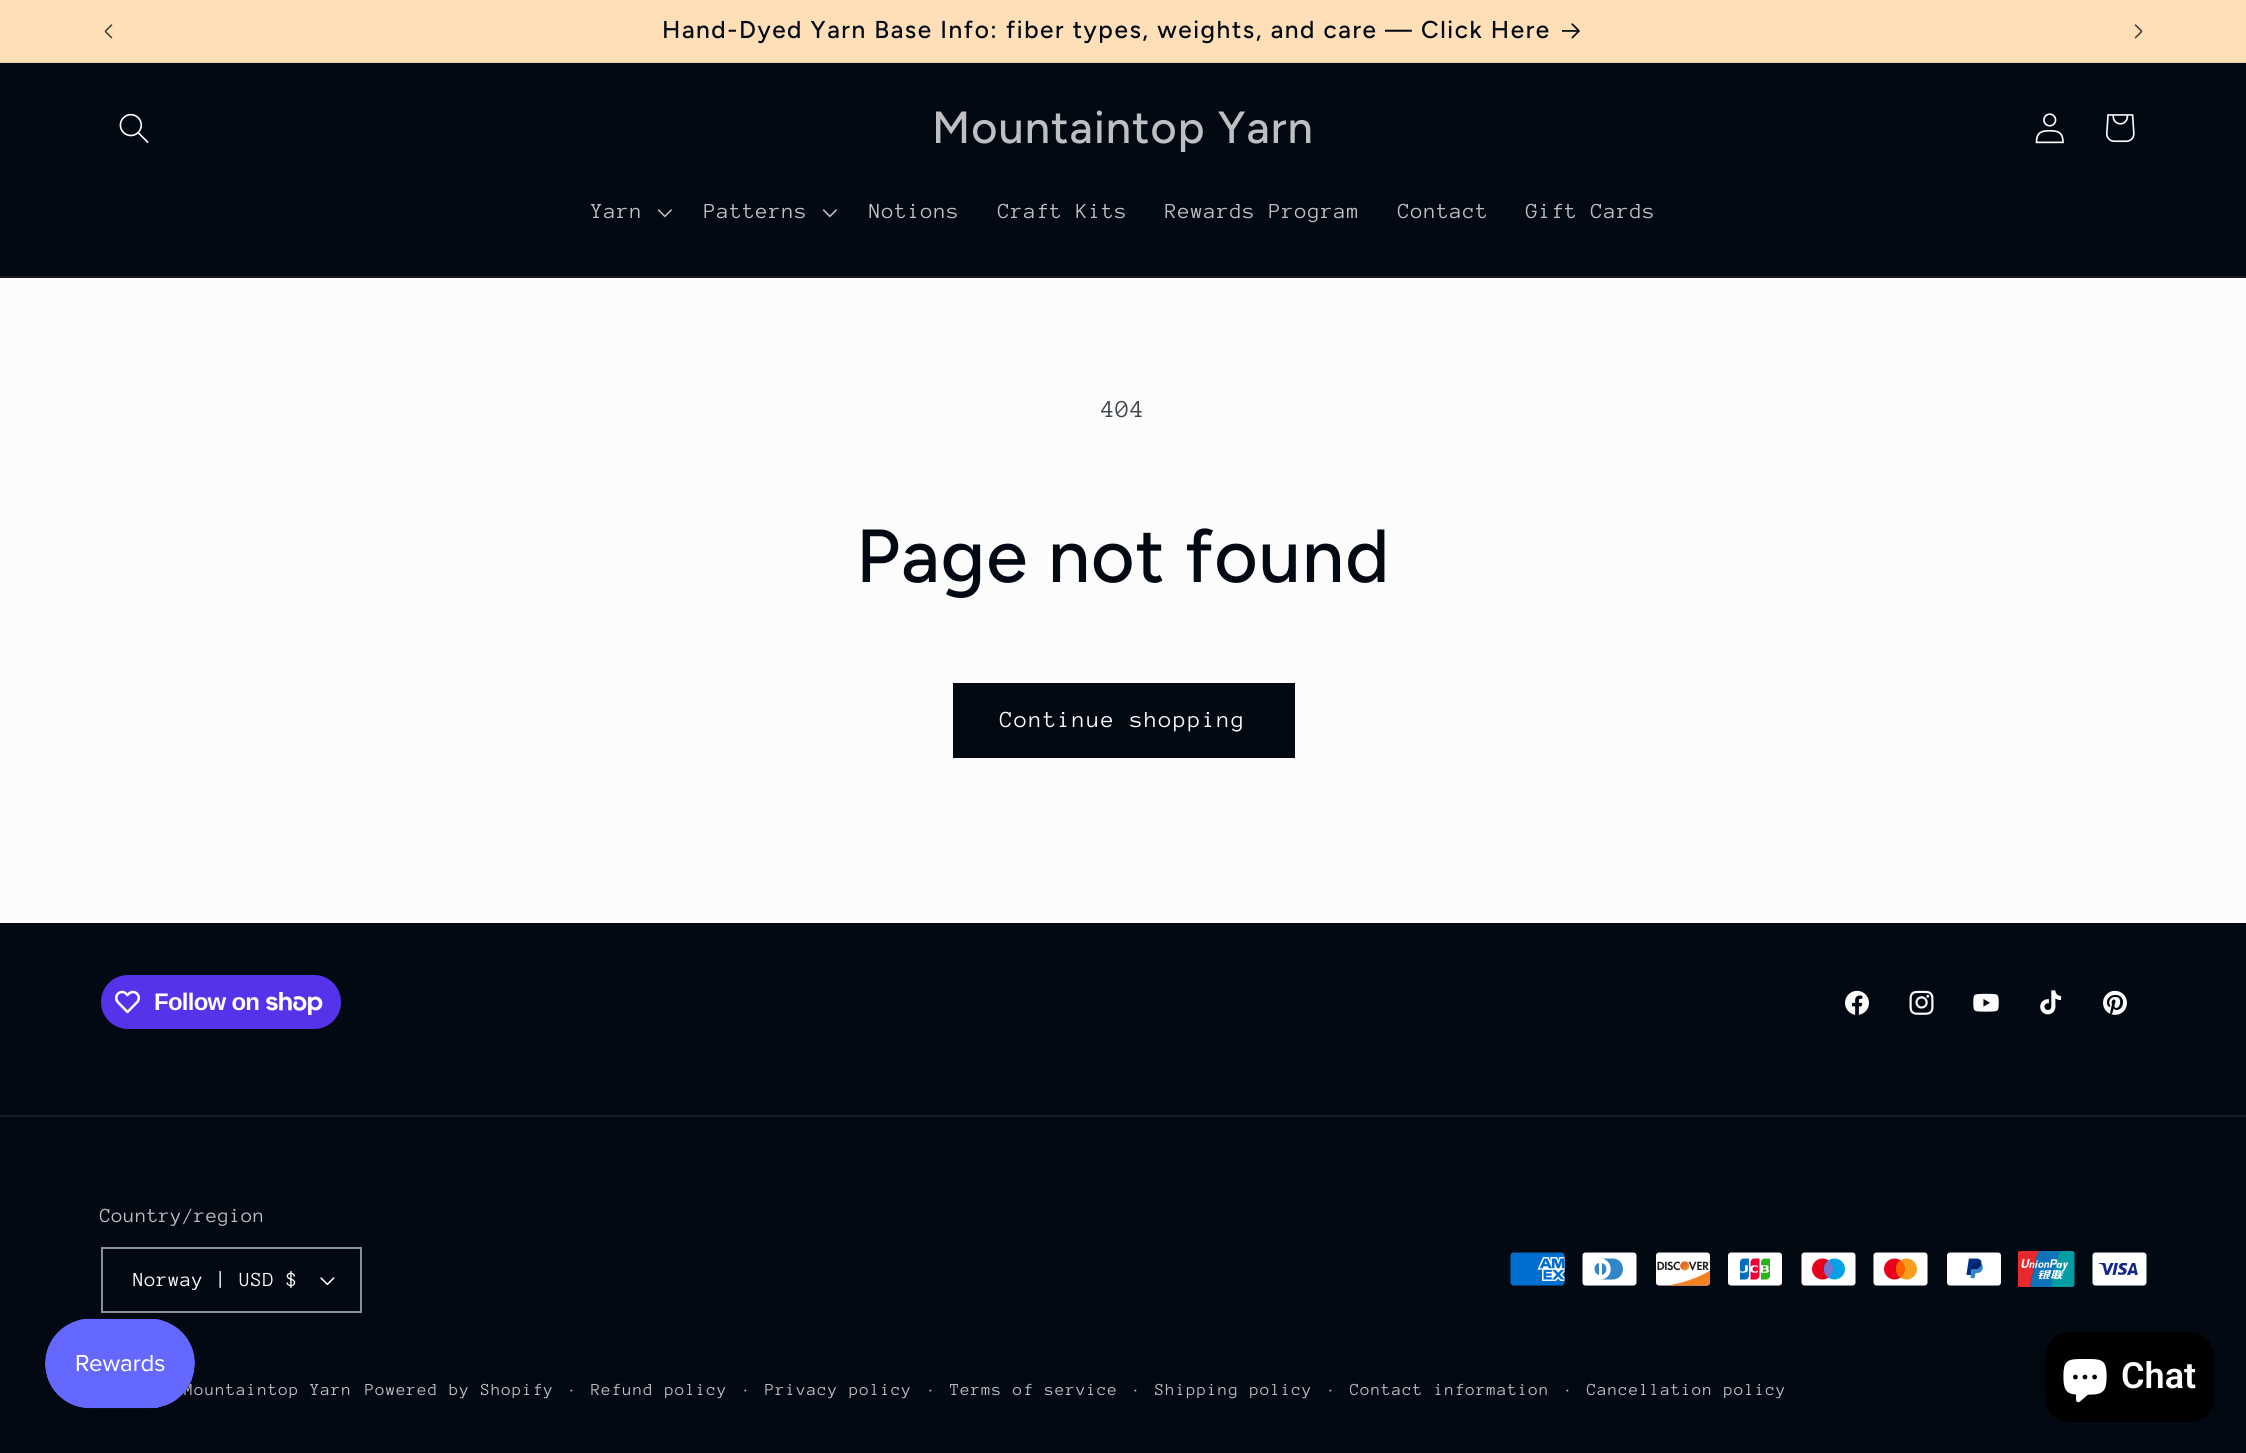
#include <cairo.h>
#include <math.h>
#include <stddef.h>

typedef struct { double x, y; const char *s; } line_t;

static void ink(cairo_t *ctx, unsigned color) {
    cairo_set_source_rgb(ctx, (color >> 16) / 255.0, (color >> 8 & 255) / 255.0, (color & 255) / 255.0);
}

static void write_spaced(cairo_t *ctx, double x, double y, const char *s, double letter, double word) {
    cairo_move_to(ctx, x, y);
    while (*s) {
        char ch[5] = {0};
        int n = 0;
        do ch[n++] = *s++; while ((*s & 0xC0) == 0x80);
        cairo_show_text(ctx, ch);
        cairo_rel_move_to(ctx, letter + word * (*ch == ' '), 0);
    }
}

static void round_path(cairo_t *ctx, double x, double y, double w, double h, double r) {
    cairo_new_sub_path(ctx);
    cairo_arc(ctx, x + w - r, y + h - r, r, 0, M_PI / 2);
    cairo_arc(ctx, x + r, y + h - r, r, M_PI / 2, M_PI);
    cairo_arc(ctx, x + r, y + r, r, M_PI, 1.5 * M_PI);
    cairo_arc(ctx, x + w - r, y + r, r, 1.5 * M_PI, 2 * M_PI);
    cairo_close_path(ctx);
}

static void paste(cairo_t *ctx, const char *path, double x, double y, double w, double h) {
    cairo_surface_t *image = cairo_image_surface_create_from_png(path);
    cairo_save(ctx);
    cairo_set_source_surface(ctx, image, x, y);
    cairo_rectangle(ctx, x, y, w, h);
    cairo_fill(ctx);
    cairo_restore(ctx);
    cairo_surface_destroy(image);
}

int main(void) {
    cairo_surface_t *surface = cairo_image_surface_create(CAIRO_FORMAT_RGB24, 2246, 1453);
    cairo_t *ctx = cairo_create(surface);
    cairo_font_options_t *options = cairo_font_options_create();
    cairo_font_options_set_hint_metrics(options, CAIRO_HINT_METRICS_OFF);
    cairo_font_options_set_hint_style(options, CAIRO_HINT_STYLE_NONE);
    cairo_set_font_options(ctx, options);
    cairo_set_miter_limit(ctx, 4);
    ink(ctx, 0xFCFCFC);
    cairo_paint(ctx);
    ink(ctx, 0xFFDFB8);
    cairo_rectangle(ctx, 0, 0, 2246, 62);
    cairo_fill(ctx);
    ink(ctx, 0xEBCEAB);
    cairo_rectangle(ctx, 0, 62, 2246, 1);
    cairo_fill(ctx);
    paste(ctx, "media/1.png", 104, 24, 9, 15);
    cairo_select_font_face(ctx, "Figtree Medium", CAIRO_FONT_SLANT_NORMAL, CAIRO_FONT_WEIGHT_NORMAL);
    cairo_set_font_size(ctx, 24.4);
    ink(ctx, 0x020912);
    write_spaced(ctx, 662, 38, "Hand-Dyed Yarn Base Info: fiber types, weights, and care — Click Here", 1.58, 0);
    paste(ctx, "media/2.png", 1562, 23, 18, 16);
    paste(ctx, "media/3.png", 2134, 24, 9, 15);
    cairo_rectangle(ctx, 0, 63, 2246, 213);
    cairo_fill(ctx);
    ink(ctx, 0x161C25);
    cairo_rectangle(ctx, 0, 276, 2246, 2);
    cairo_fill(ctx);
    paste(ctx, "media/4.png", 119, 113, 30, 30);
    cairo_set_font_size(ctx, 45);
    ink(ctx, 0xBEBFC2);
    write_spaced(ctx, 932, 143, "Mountaintop Yarn", 1.1, 0);
    paste(ctx, "media/5.png", 2035, 113, 29, 31);
    paste(ctx, "media/6.png", 2106, 114, 29, 29);
    cairo_select_font_face(ctx, "Anonymous Pro", CAIRO_FONT_SLANT_NORMAL, CAIRO_FONT_WEIGHT_NORMAL);
    cairo_set_font_size(ctx, 22);
    write_spaced(ctx, 591, 218, "Yarn", 1, 0);
    paste(ctx, "media/7.png", 657, 209, 15, 9);
    write_spaced(ctx, 704, 218, "Patterns", 1, 0);
    paste(ctx, "media/7.png", 822, 209, 15, 9);
    {
        static const line_t items[] = {
            {869, 218, "Notions"},
            {998, 218, "Craft Kits"},
            {1165, 218, "Rewards Program"},
            {1398, 218, "Contact"},
            {1526, 218, "Gift Cards"},
        };
        for (size_t i = 0; i < sizeof items / sizeof *items; i++) {
            write_spaced(ctx, items[i].x, items[i].y, items[i].s, 1, 0);
        }
    }
    cairo_set_font_size(ctx, 25);
    ink(ctx, 0x41464D);
    write_spaced(ctx, 1101, 417, "404", 1, 0);
    cairo_select_font_face(ctx, "Figtree Medium", CAIRO_FONT_SLANT_NORMAL, CAIRO_FONT_WEIGHT_NORMAL);
    cairo_set_font_size(ctx, 75);
    ink(ctx, 0x020912);
    write_spaced(ctx, 856, 582, "Page not found", 1.1, 0);
    cairo_rectangle(ctx, 953, 683, 342, 75);
    cairo_fill(ctx);
    cairo_select_font_face(ctx, "Anonymous Pro", CAIRO_FONT_SLANT_NORMAL, CAIRO_FONT_WEIGHT_NORMAL);
    cairo_set_font_size(ctx, 23.6);
    ink(ctx, 0xFCFCFC);
    write_spaced(ctx, 1000, 727, "Continue shopping", 1.58, 0);
    ink(ctx, 0x020912);
    cairo_rectangle(ctx, 0, 923, 2246, 530);
    cairo_fill(ctx);
    ink(ctx, 0x5433EB);
    round_path(ctx, 101, 975, 240, 54, 27);
    cairo_fill(ctx);
    paste(ctx, "media/8.png", 115, 990, 25, 24);
    cairo_select_font_face(ctx, "Liberation Sans", CAIRO_FONT_SLANT_NORMAL, CAIRO_FONT_WEIGHT_BOLD);
    cairo_set_font_size(ctx, 24);
    ink(ctx, 0xFCFCFC);
    write_spaced(ctx, 154, 1010, "Follow on", -0.75, 0);
    paste(ctx, "media/9.png", 266, 992, 57, 23);
    paste(ctx, "media/10.png", 1845, 990, 24, 25);
    paste(ctx, "media/11.png", 1909, 990, 25, 25);
    paste(ctx, "media/12.png", 1973, 993, 26, 19);
    paste(ctx, "media/13.png", 2040, 990, 22, 25);
    paste(ctx, "media/14.png", 2103, 990, 24, 25);
    ink(ctx, 0x161C25);
    cairo_rectangle(ctx, 0, 1115, 2246, 2);
    cairo_fill(ctx);
    cairo_select_font_face(ctx, "Anonymous Pro", CAIRO_FONT_SLANT_NORMAL, CAIRO_FONT_WEIGHT_NORMAL);
    cairo_set_font_size(ctx, 20.5);
    ink(ctx, 0xBEBFC2);
    write_spaced(ctx, 100, 1222, "Country/region", 0.6, 0);
    paste(ctx, "media/15.png", 320, 1277, 15, 9);
    cairo_rectangle(ctx, 102, 1248, 259, 64);
    ink(ctx, 0x8C8F93);
    cairo_stroke(ctx);
    ink(ctx, 0xFCFCFC);
    write_spaced(ctx, 133, 1286, "Norway | USD $", 0.6, 0);
    paste(ctx, "media/16.png", 1510, 1252, 55, 34);
    paste(ctx, "media/17.png", 1582, 1252, 55, 34);
    paste(ctx, "media/18.png", 1656, 1252, 55, 34);
    paste(ctx, "media/19.png", 1728, 1252, 54, 34);
    paste(ctx, "media/20.png", 1801, 1252, 55, 34);
    paste(ctx, "media/21.png", 1873, 1252, 55, 34);
    paste(ctx, "media/22.png", 1947, 1252, 54, 34);
    paste(ctx, "media/23.png", 2018, 1251, 57, 36);
    paste(ctx, "media/24.png", 2092, 1252, 55, 34);
    cairo_set_font_size(ctx, 17.25);
    ink(ctx, 0xBEBFC2);
    write_spaced(ctx, 184, 1395, "Mountaintop Yarn", 1.1, 0);
    write_spaced(ctx, 365, 1395, "Powered by Shopify", 1.1, 0);
    cairo_set_font_size(ctx, 19);
    write_spaced(ctx, 567, 1395, "·", 1.1, 0);
    cairo_set_font_size(ctx, 17.25);
    write_spaced(ctx, 591, 1395, "Refund policy", 1.1, 0);
    cairo_set_font_size(ctx, 19);
    write_spaced(ctx, 741, 1395, "·", 1.1, 0);
    cairo_set_font_size(ctx, 17.25);
    write_spaced(ctx, 765, 1395, "Privacy policy", 1.1, 0);
    cairo_set_font_size(ctx, 19);
    write_spaced(ctx, 926, 1395, "·", 1.1, 0);
    cairo_set_font_size(ctx, 17.25);
    write_spaced(ctx, 950, 1395, "Terms of service", 1.1, 0);
    cairo_set_font_size(ctx, 19);
    write_spaced(ctx, 1131, 1395, "·", 1.1, 0);
    cairo_set_font_size(ctx, 17.25);
    write_spaced(ctx, 1155, 1395, "Shipping policy", 1.1, 0);
    cairo_set_font_size(ctx, 19);
    write_spaced(ctx, 1326, 1395, "·", 1.1, 0);
    cairo_set_font_size(ctx, 17.25);
    write_spaced(ctx, 1350, 1395, "Contact information", 1.1, 0);
    cairo_set_font_size(ctx, 19);
    write_spaced(ctx, 1563, 1395, "·", 1.1, 0);
    cairo_set_font_size(ctx, 17.25);
    write_spaced(ctx, 1587, 1395, "Cancellation policy", 1.1, 0);
    paste(ctx, "media/25.png", 45, 1318, 150, 91);
    ink(ctx, 0x000000);
    round_path(ctx, 2045, 1332, 169, 90, 24);
    cairo_fill(ctx);
    paste(ctx, "media/26.png", 2063, 1359, 44, 44);
    cairo_select_font_face(ctx, "Roboto SemiBold", CAIRO_FONT_SLANT_NORMAL, CAIRO_FONT_WEIGHT_NORMAL);
    cairo_set_font_size(ctx, 36);
    ink(ctx, 0xFCFCFC);
    cairo_move_to(ctx, 2121, 1388);
    cairo_show_text(ctx, "Chat");
    cairo_surface_write_to_png(surface, "image.png");
    cairo_font_options_destroy(options);
    cairo_destroy(ctx);
    cairo_surface_destroy(surface);
    return 0;
}
